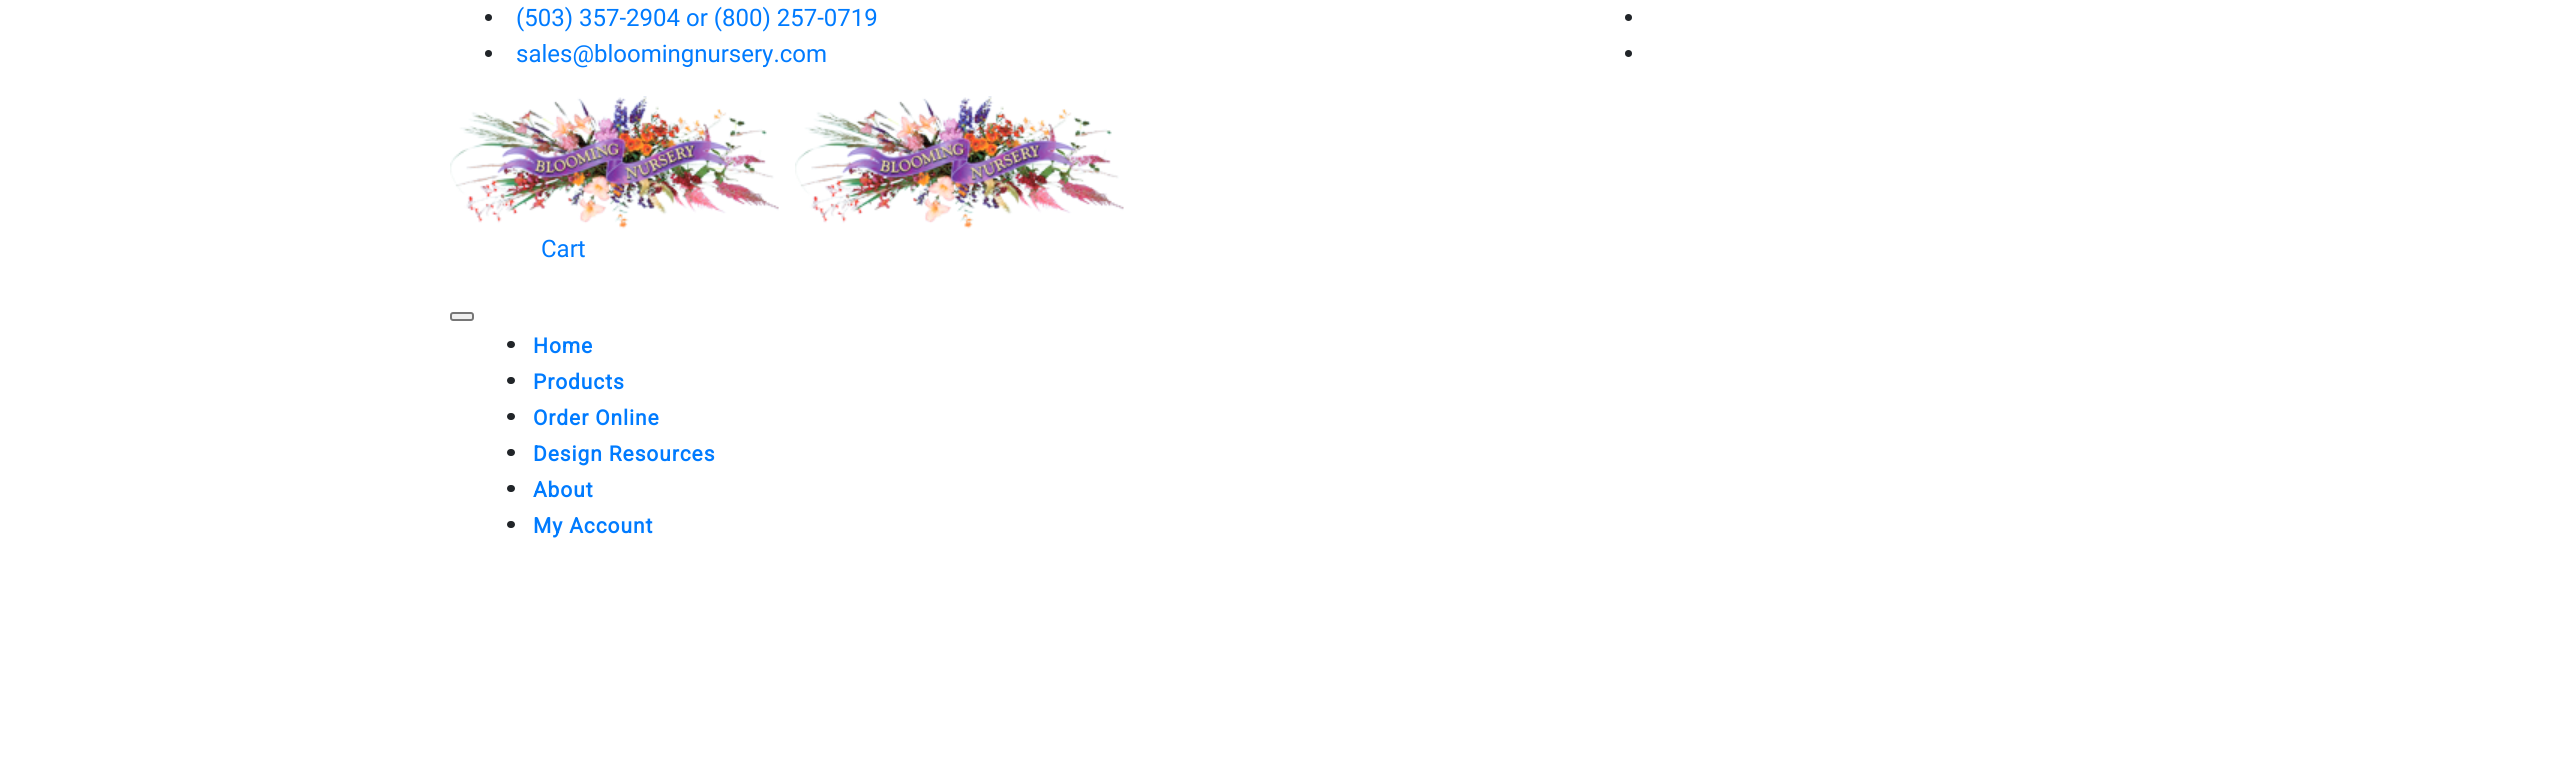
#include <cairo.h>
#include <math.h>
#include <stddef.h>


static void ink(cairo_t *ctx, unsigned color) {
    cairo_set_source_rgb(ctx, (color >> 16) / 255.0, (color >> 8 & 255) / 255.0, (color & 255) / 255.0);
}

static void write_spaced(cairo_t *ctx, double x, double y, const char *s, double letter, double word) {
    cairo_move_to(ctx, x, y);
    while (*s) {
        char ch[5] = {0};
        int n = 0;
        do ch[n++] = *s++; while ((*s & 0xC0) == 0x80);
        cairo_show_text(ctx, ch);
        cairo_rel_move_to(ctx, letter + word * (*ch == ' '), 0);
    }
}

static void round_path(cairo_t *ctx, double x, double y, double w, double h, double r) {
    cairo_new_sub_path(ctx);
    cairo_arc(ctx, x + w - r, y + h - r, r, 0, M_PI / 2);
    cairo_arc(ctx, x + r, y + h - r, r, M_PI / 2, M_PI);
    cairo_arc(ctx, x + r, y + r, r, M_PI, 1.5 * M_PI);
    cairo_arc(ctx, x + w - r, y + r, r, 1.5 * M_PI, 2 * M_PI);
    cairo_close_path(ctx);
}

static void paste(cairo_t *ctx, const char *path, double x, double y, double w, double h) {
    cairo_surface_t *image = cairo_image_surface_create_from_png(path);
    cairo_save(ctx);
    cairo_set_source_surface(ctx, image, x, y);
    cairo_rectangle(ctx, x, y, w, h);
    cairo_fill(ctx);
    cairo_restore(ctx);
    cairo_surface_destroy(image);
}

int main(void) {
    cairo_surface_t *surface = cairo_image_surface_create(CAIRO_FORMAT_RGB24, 2564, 779);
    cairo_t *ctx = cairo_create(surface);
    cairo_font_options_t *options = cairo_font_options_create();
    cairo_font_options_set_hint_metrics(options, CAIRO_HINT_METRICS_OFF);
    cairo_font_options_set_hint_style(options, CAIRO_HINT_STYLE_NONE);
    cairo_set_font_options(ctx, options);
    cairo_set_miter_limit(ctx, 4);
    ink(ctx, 0xFFFFFF);
    cairo_paint(ctx);
    ink(ctx, 0x212529);
    cairo_arc(ctx, 488.5, 17.5, 3.5, 0, 2 * M_PI);
    cairo_fill(ctx);
    cairo_select_font_face(ctx, "Roboto", CAIRO_FONT_SLANT_NORMAL, CAIRO_FONT_WEIGHT_NORMAL);
    cairo_set_font_size(ctx, 24);
    ink(ctx, 0x007BFF);
    cairo_move_to(ctx, 516, 26);
    cairo_show_text(ctx, "(503) 357-2904 or (800) 257-0719");
    ink(ctx, 0x212529);
    cairo_new_path(ctx);
    cairo_arc(ctx, 488.5, 53.5, 3.5, 0, 2 * M_PI);
    cairo_fill(ctx);
    ink(ctx, 0x007BFF);
    cairo_move_to(ctx, 516, 62);
    cairo_show_text(ctx, "sales@bloomingnursery.com");
    ink(ctx, 0x212529);
    cairo_new_path(ctx);
    cairo_arc(ctx, 1628.5, 17.5, 3.5, 0, 2 * M_PI);
    cairo_fill(ctx);
    cairo_arc(ctx, 1628.5, 53.5, 3.5, 0, 2 * M_PI);
    cairo_fill(ctx);
    paste(ctx, "media/1.png", 450, 96, 329, 133);
    paste(ctx, "media/2.png", 795, 96, 329, 133);
    ink(ctx, 0x007BFF);
    cairo_move_to(ctx, 541, 257);
    cairo_show_text(ctx, "Cart");
    ink(ctx, 0xEFEFEF);
    round_path(ctx, 451, 313, 22, 7, 2);
    cairo_fill_preserve(ctx);
    ink(ctx, 0x767676);
    cairo_stroke(ctx);
    ink(ctx, 0x212529);
    round_path(ctx, 507, 341, 8, 7, 3.5);
    cairo_fill(ctx);
    cairo_select_font_face(ctx, "Roboto", CAIRO_FONT_SLANT_NORMAL, CAIRO_FONT_WEIGHT_BOLD);
    cairo_set_font_size(ctx, 21);
    ink(ctx, 0x007BFF);
    write_spaced(ctx, 533, 353, "Home", 0.9, 0);
    ink(ctx, 0x212529);
    round_path(ctx, 507, 377, 8, 7, 3.5);
    cairo_fill(ctx);
    ink(ctx, 0x007BFF);
    write_spaced(ctx, 533, 389, "Products", 0.9, 0);
    ink(ctx, 0x212529);
    round_path(ctx, 507, 413, 8, 7, 3.5);
    cairo_fill(ctx);
    ink(ctx, 0x007BFF);
    write_spaced(ctx, 533, 425, "Order Online", 0.9, 0);
    ink(ctx, 0x212529);
    round_path(ctx, 507, 449, 8, 7, 3.5);
    cairo_fill(ctx);
    ink(ctx, 0x007BFF);
    write_spaced(ctx, 533, 461, "Design Resources", 0.9, 0);
    ink(ctx, 0x212529);
    round_path(ctx, 507, 485, 8, 7, 3.5);
    cairo_fill(ctx);
    ink(ctx, 0x007BFF);
    write_spaced(ctx, 533, 497, "About", 0.9, 0);
    ink(ctx, 0x212529);
    round_path(ctx, 507, 521, 8, 7, 3.5);
    cairo_fill(ctx);
    ink(ctx, 0x007BFF);
    write_spaced(ctx, 533, 533, "My Account", 0.9, 0);
    cairo_surface_write_to_png(surface, "image.png");
    cairo_font_options_destroy(options);
    cairo_destroy(ctx);
    cairo_surface_destroy(surface);
    return 0;
}
